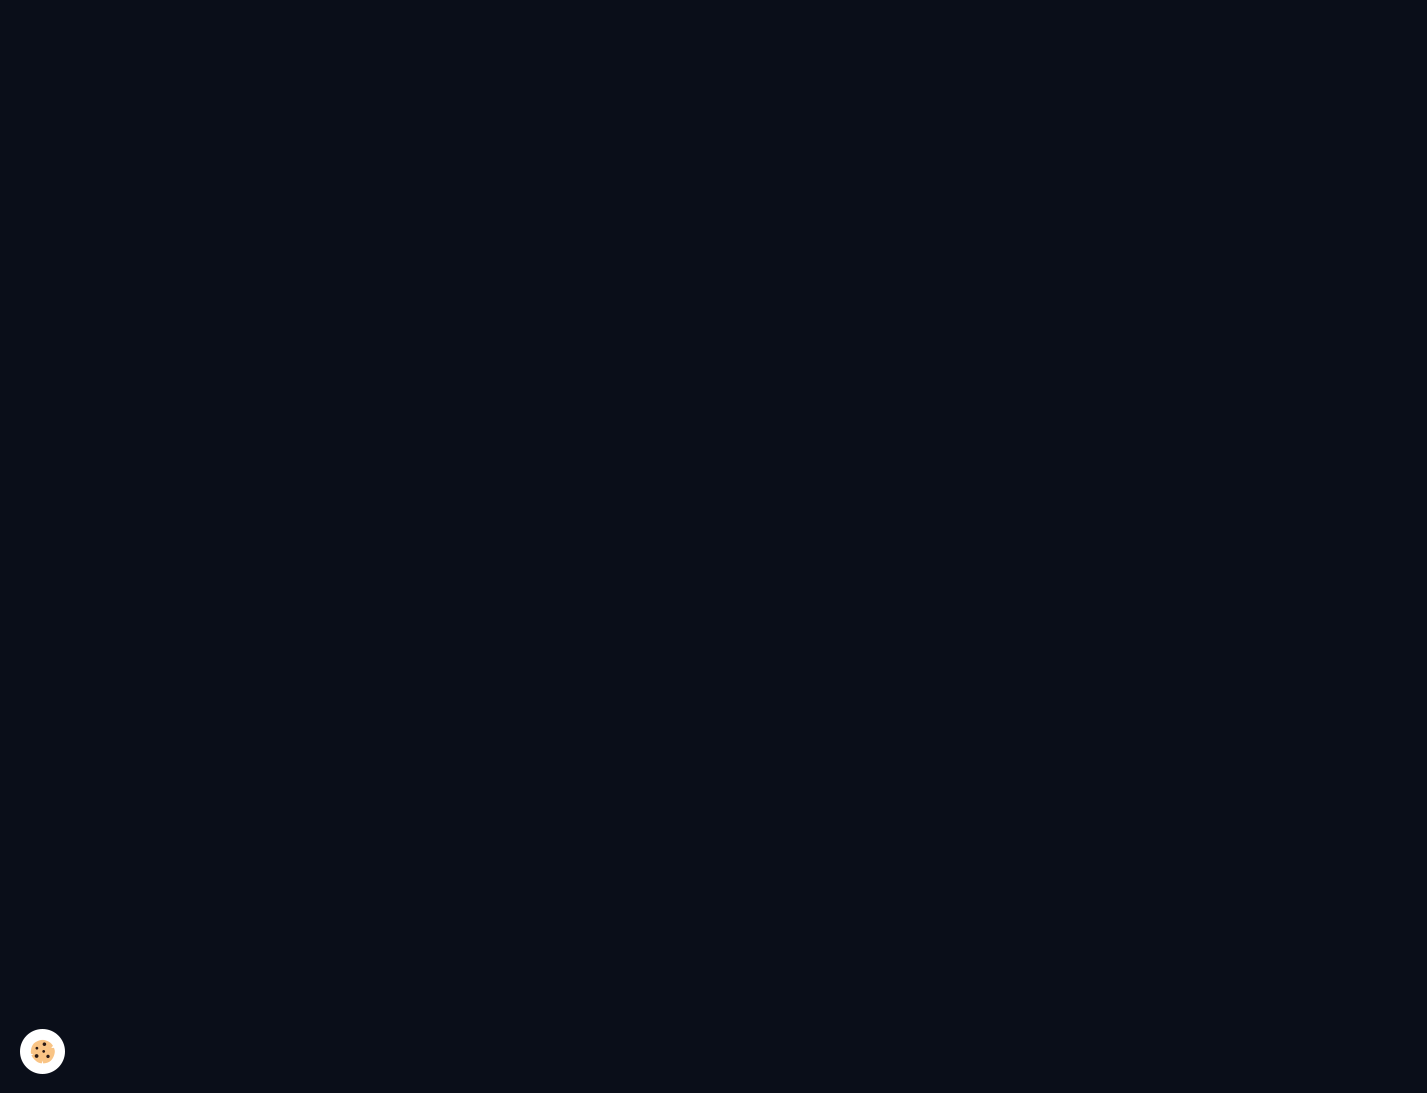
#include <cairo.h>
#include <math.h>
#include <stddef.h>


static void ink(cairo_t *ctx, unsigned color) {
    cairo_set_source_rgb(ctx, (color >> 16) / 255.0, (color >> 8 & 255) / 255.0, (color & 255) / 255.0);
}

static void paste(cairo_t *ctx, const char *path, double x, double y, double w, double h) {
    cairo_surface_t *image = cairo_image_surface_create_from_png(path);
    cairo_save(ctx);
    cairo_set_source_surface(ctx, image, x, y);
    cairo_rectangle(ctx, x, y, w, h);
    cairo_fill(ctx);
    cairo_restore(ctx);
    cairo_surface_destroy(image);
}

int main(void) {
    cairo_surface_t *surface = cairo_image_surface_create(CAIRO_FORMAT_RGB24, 1427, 1093);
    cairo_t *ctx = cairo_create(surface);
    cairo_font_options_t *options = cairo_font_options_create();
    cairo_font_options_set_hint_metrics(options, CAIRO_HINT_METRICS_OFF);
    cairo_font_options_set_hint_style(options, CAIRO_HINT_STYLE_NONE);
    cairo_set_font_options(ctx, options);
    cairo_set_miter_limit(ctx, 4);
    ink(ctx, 0x0A0E19);
    cairo_paint(ctx);
    ink(ctx, 0xFFFFFF);
    cairo_arc(ctx, 42.5, 1051.5, 22.5, 0, 2 * M_PI);
    cairo_fill(ctx);
    paste(ctx, "media/1.png", 30, 1039, 25, 25);
    cairo_surface_write_to_png(surface, "image.png");
    cairo_font_options_destroy(options);
    cairo_destroy(ctx);
    cairo_surface_destroy(surface);
    return 0;
}
